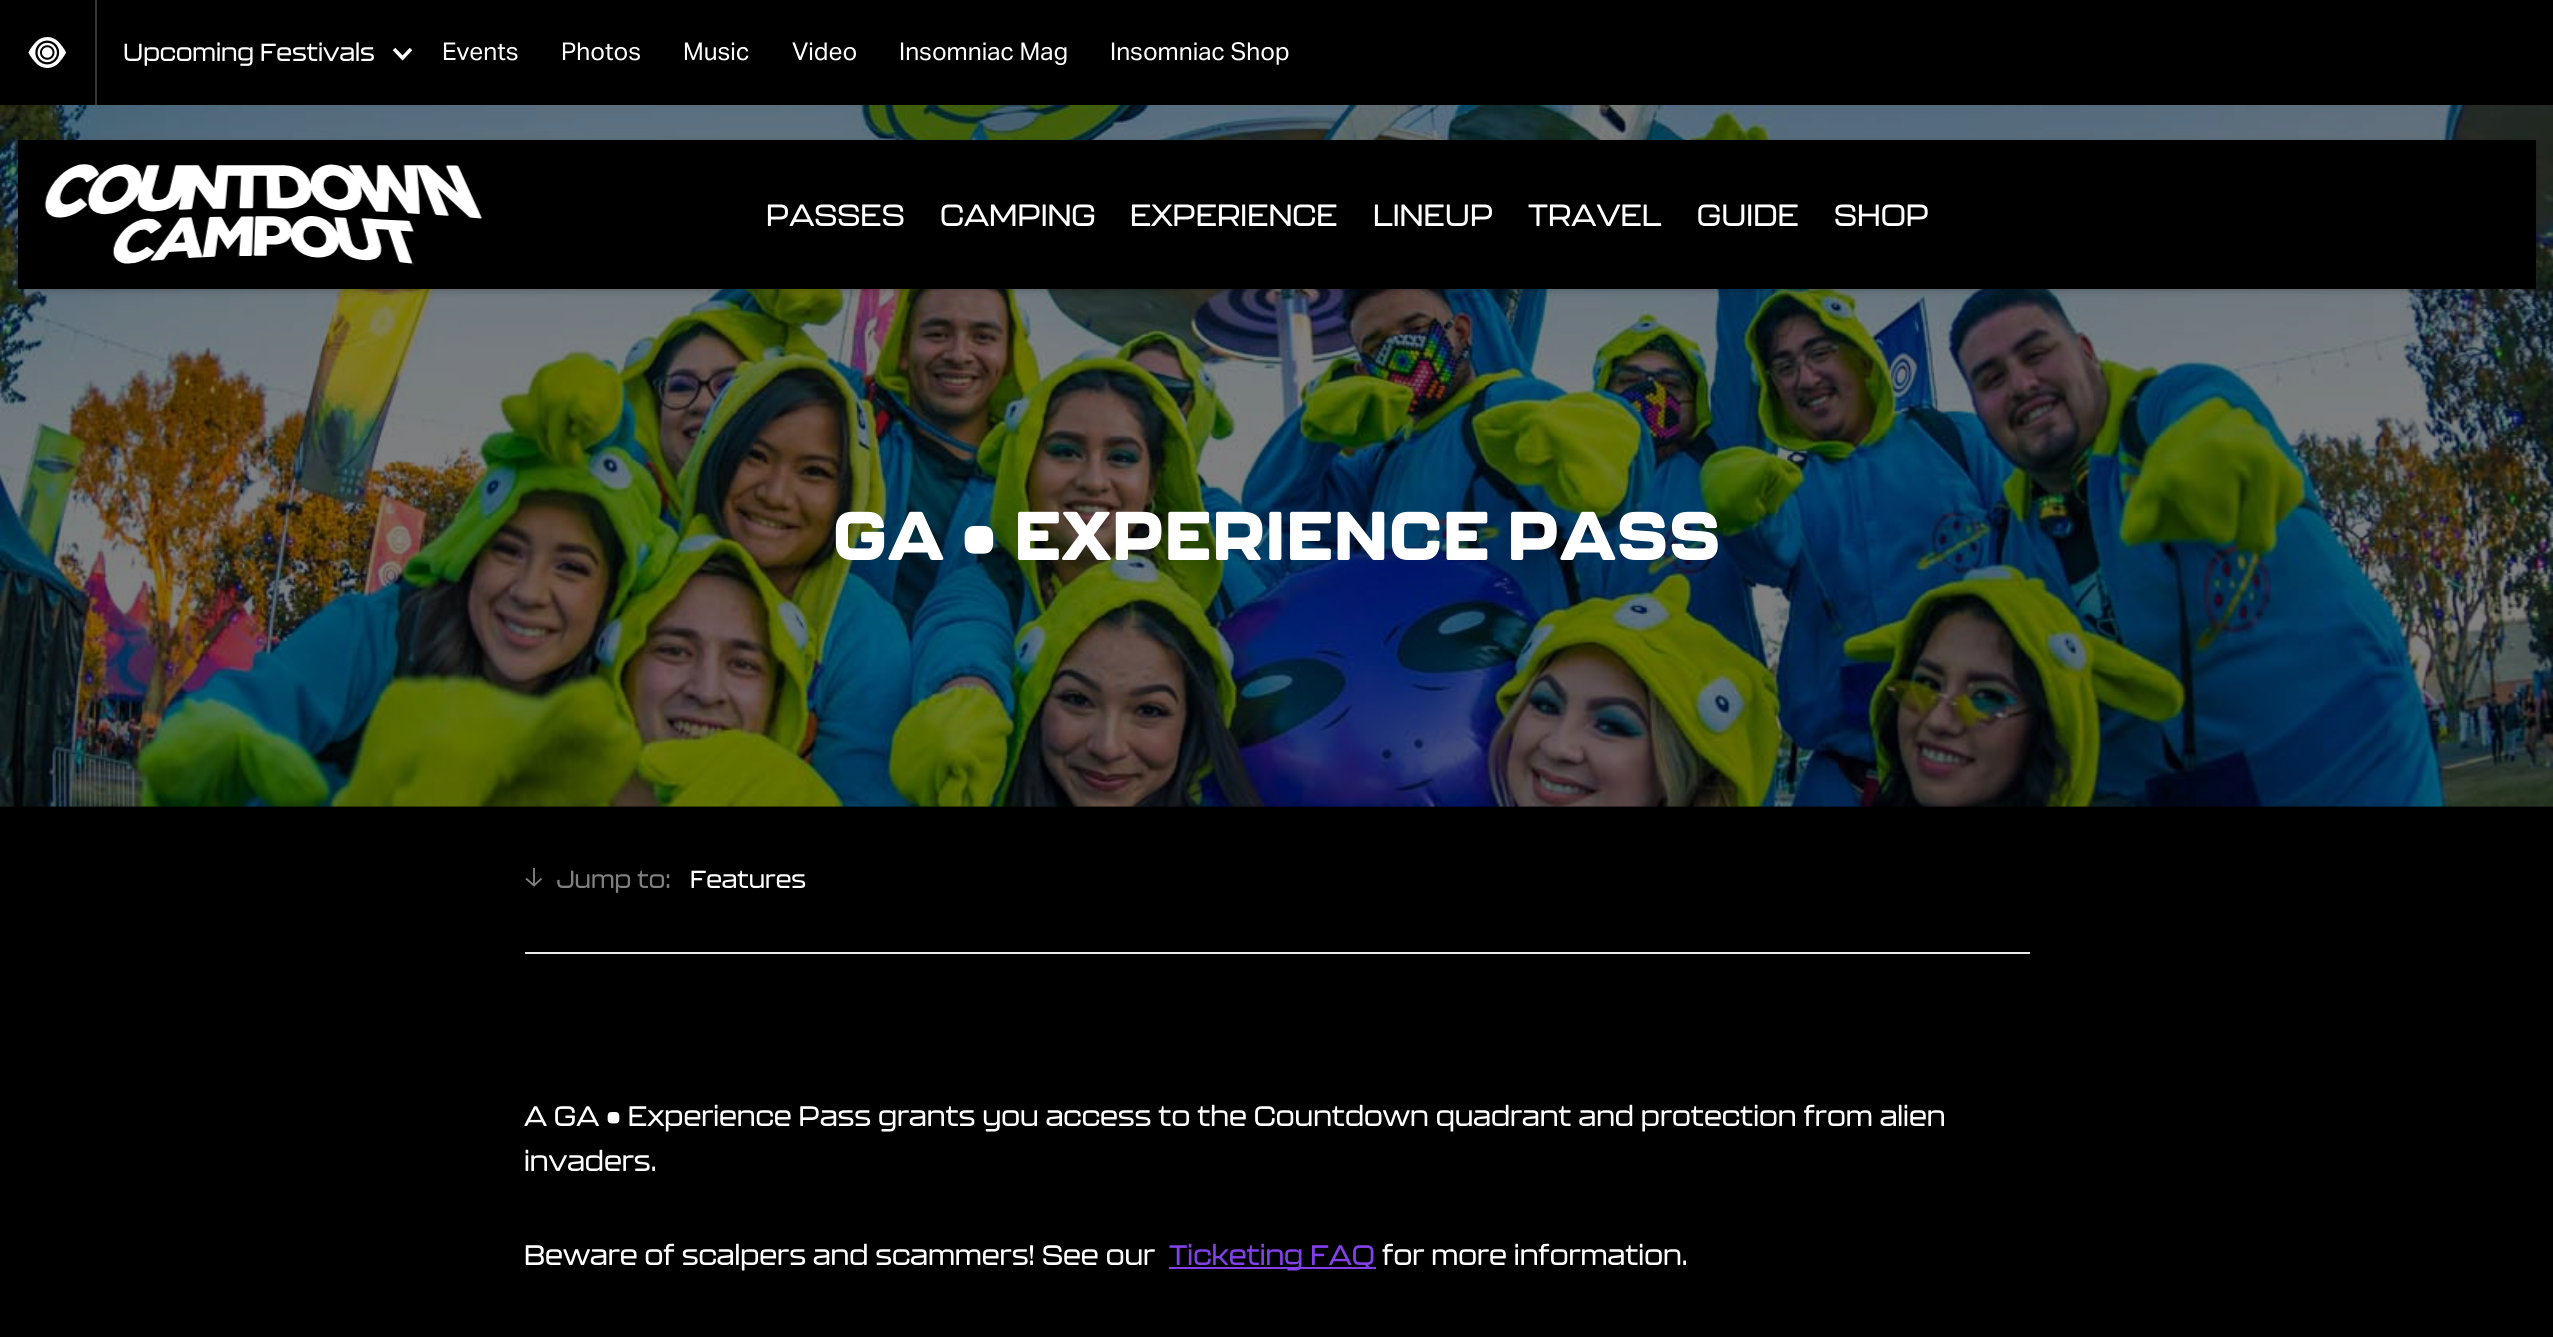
#include <cairo.h>
#include <math.h>
#include <stddef.h>

typedef struct { double x, y; const char *s; } line_t;

static void ink(cairo_t *ctx, unsigned color) {
    cairo_set_source_rgb(ctx, (color >> 16) / 255.0, (color >> 8 & 255) / 255.0, (color & 255) / 255.0);
}

static void round_path(cairo_t *ctx, double x, double y, double w, double h, double r) {
    cairo_new_sub_path(ctx);
    cairo_arc(ctx, x + w - r, y + h - r, r, 0, M_PI / 2);
    cairo_arc(ctx, x + r, y + h - r, r, M_PI / 2, M_PI);
    cairo_arc(ctx, x + r, y + r, r, M_PI, 1.5 * M_PI);
    cairo_arc(ctx, x + w - r, y + r, r, 1.5 * M_PI, 2 * M_PI);
    cairo_close_path(ctx);
}

static void blur_box(cairo_t *ctx, double x, double y, double w, double h, double r, double blur, double alpha) {
    cairo_push_group_with_content(ctx, CAIRO_CONTENT_ALPHA);
    cairo_set_operator(ctx, CAIRO_OPERATOR_SOURCE);
    for (int i = 15; i >= -15 && fmin(w, h) + blur * i / 3 > 0; i -= 2) {
        double e = blur * i / 6;
        cairo_set_source_rgba(ctx, 0, 0, 0, alpha * erfc((i - 1) / 8.5) / 2);
        round_path(ctx, x - e, y - e, w + 2 * e, h + 2 * e, fmax(0, fmin(r + e + blur * .6, fmin(w, h) / 2 + e)));
        cairo_fill(ctx);
    }
    cairo_pattern_t *soft = cairo_pop_group(ctx);
    cairo_mask(ctx, soft);
    cairo_pattern_destroy(soft);
}

static void paste(cairo_t *ctx, const char *path, double x, double y, double w, double h) {
    cairo_surface_t *image = cairo_image_surface_create_from_png(path);
    cairo_save(ctx);
    cairo_set_source_surface(ctx, image, x, y);
    cairo_rectangle(ctx, x, y, w, h);
    cairo_fill(ctx);
    cairo_restore(ctx);
    cairo_surface_destroy(image);
}

int main(void) {
    cairo_surface_t *surface = cairo_image_surface_create(CAIRO_FORMAT_RGB24, 2553, 1337);
    cairo_t *ctx = cairo_create(surface);
    cairo_font_options_t *options = cairo_font_options_create();
    cairo_font_options_set_hint_metrics(options, CAIRO_HINT_METRICS_OFF);
    cairo_font_options_set_hint_style(options, CAIRO_HINT_STYLE_NONE);
    cairo_set_font_options(ctx, options);
    cairo_set_miter_limit(ctx, 4);
    ink(ctx, 0x000000);
    cairo_paint(ctx);
    ink(ctx, 0x353535);
    cairo_rectangle(ctx, 95, 0, 2, 105);
    cairo_fill(ctx);
    paste(ctx, "media/1.png", 28, 37, 39, 31);
    cairo_select_font_face(ctx, "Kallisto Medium", CAIRO_FONT_SLANT_NORMAL, CAIRO_FONT_WEIGHT_NORMAL);
    cairo_set_font_size(ctx, 24.5);
    ink(ctx, 0xFFFFFF);
    cairo_move_to(ctx, 123, 61);
    cairo_show_text(ctx, "Upcoming Festivals");
    cairo_new_path(ctx);
    cairo_move_to(ctx, 394, 49);
    cairo_line_to(ctx, 402.5, 58);
    cairo_line_to(ctx, 411, 49);
    cairo_set_line_width(ctx, 3.5);
    cairo_stroke(ctx);
    cairo_select_font_face(ctx, "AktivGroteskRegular", CAIRO_FONT_SLANT_NORMAL, CAIRO_FONT_WEIGHT_NORMAL);
    {
        static const line_t items[] = {
            {442, 60, "Events"},
            {561, 60, "Photos"},
            {683, 60, "Music"},
            {792, 60, "Video"},
            {899, 60, "Insomniac Mag"},
            {1110, 60, "Insomniac Shop"},
        };
        for (size_t i = 0; i < sizeof items / sizeof *items; i++) {
            cairo_move_to(ctx, items[i].x, items[i].y);
            cairo_show_text(ctx, items[i].s);
        }
    }
    paste(ctx, "media/3.png", 0, 105, 2553, 702);
    ink(ctx, 0x000000);
    blur_box(ctx, 18, 142, 2518, 149, 0, 3.5, 0.2);
    ink(ctx, 0x000000);
    cairo_rectangle(ctx, 18, 140, 2518, 149);
    cairo_fill(ctx);
    paste(ctx, "media/2.png", 44, 164, 438, 102);
    cairo_select_font_face(ctx, "Kallisto Medium", CAIRO_FONT_SLANT_NORMAL, CAIRO_FONT_WEIGHT_NORMAL);
    cairo_set_font_size(ctx, 30.5);
    ink(ctx, 0xFFFFFF);
    {
        static const line_t items[] = {
            {766, 226, "PASSES"},
            {940, 226, "CAMPING"},
            {1130, 226, "EXPERIENCE"},
            {1373, 226, "LINEUP"},
            {1528, 226, "TRAVEL"},
            {1697, 226, "GUIDE"},
            {1834, 226, "SHOP"},
        };
        for (size_t i = 0; i < sizeof items / sizeof *items; i++) {
            cairo_move_to(ctx, items[i].x, items[i].y);
            cairo_show_text(ctx, items[i].s);
        }
    }
    cairo_select_font_face(ctx, "Kallisto Black", CAIRO_FONT_SLANT_NORMAL, CAIRO_FONT_WEIGHT_NORMAL);
    cairo_set_font_size(ctx, 68.25);
    cairo_move_to(ctx, 833, 560);
    cairo_show_text(ctx, "GA • EXPERIENCE PASS");
    ink(ctx, 0xEBEBEB);
    cairo_rectangle(ctx, 525, 952, 1505, 2);
    cairo_fill(ctx);
    ink(ctx, 0x777777);
    cairo_rectangle(ctx, 533, 868, 2, 17);
    cairo_fill(ctx);
    cairo_new_path(ctx);
    cairo_move_to(ctx, 526, 878.5);
    cairo_line_to(ctx, 534, 885.5);
    cairo_line_to(ctx, 541.5, 878.5);
    ink(ctx, 0x848484);
    cairo_set_line_width(ctx, 1.8);
    cairo_stroke(ctx);
    cairo_select_font_face(ctx, "Kallisto Medium", CAIRO_FONT_SLANT_NORMAL, CAIRO_FONT_WEIGHT_NORMAL);
    cairo_set_font_size(ctx, 24.5);
    ink(ctx, 0x7F7F7F);
    cairo_move_to(ctx, 556, 888);
    cairo_show_text(ctx, "Jump to:");
    ink(ctx, 0xFFFFFF);
    cairo_move_to(ctx, 690, 888);
    cairo_show_text(ctx, "Features");
    cairo_set_font_size(ctx, 28);
    {
        static const line_t items[] = {
            {524, 1126, "A GA • Experience Pass grants you access to the Countdown quadrant and protection from alien"},
            {524, 1171, "invaders."},
            {524, 1265, "Beware of scalpers and scammers! See our"},
        };
        for (size_t i = 0; i < sizeof items / sizeof *items; i++) {
            cairo_move_to(ctx, items[i].x, items[i].y);
            cairo_show_text(ctx, items[i].s);
        }
    }
    ink(ctx, 0x8340EA);
    cairo_rectangle(ctx, 1169, 1267, 207, 2);
    cairo_fill(ctx);
    cairo_move_to(ctx, 1169, 1265);
    cairo_show_text(ctx, "Ticketing FAQ");
    ink(ctx, 0xFFFFFF);
    cairo_move_to(ctx, 1382, 1265);
    cairo_show_text(ctx, "for more information.");
    cairo_surface_write_to_png(surface, "image.png");
    cairo_font_options_destroy(options);
    cairo_destroy(ctx);
    cairo_surface_destroy(surface);
    return 0;
}
